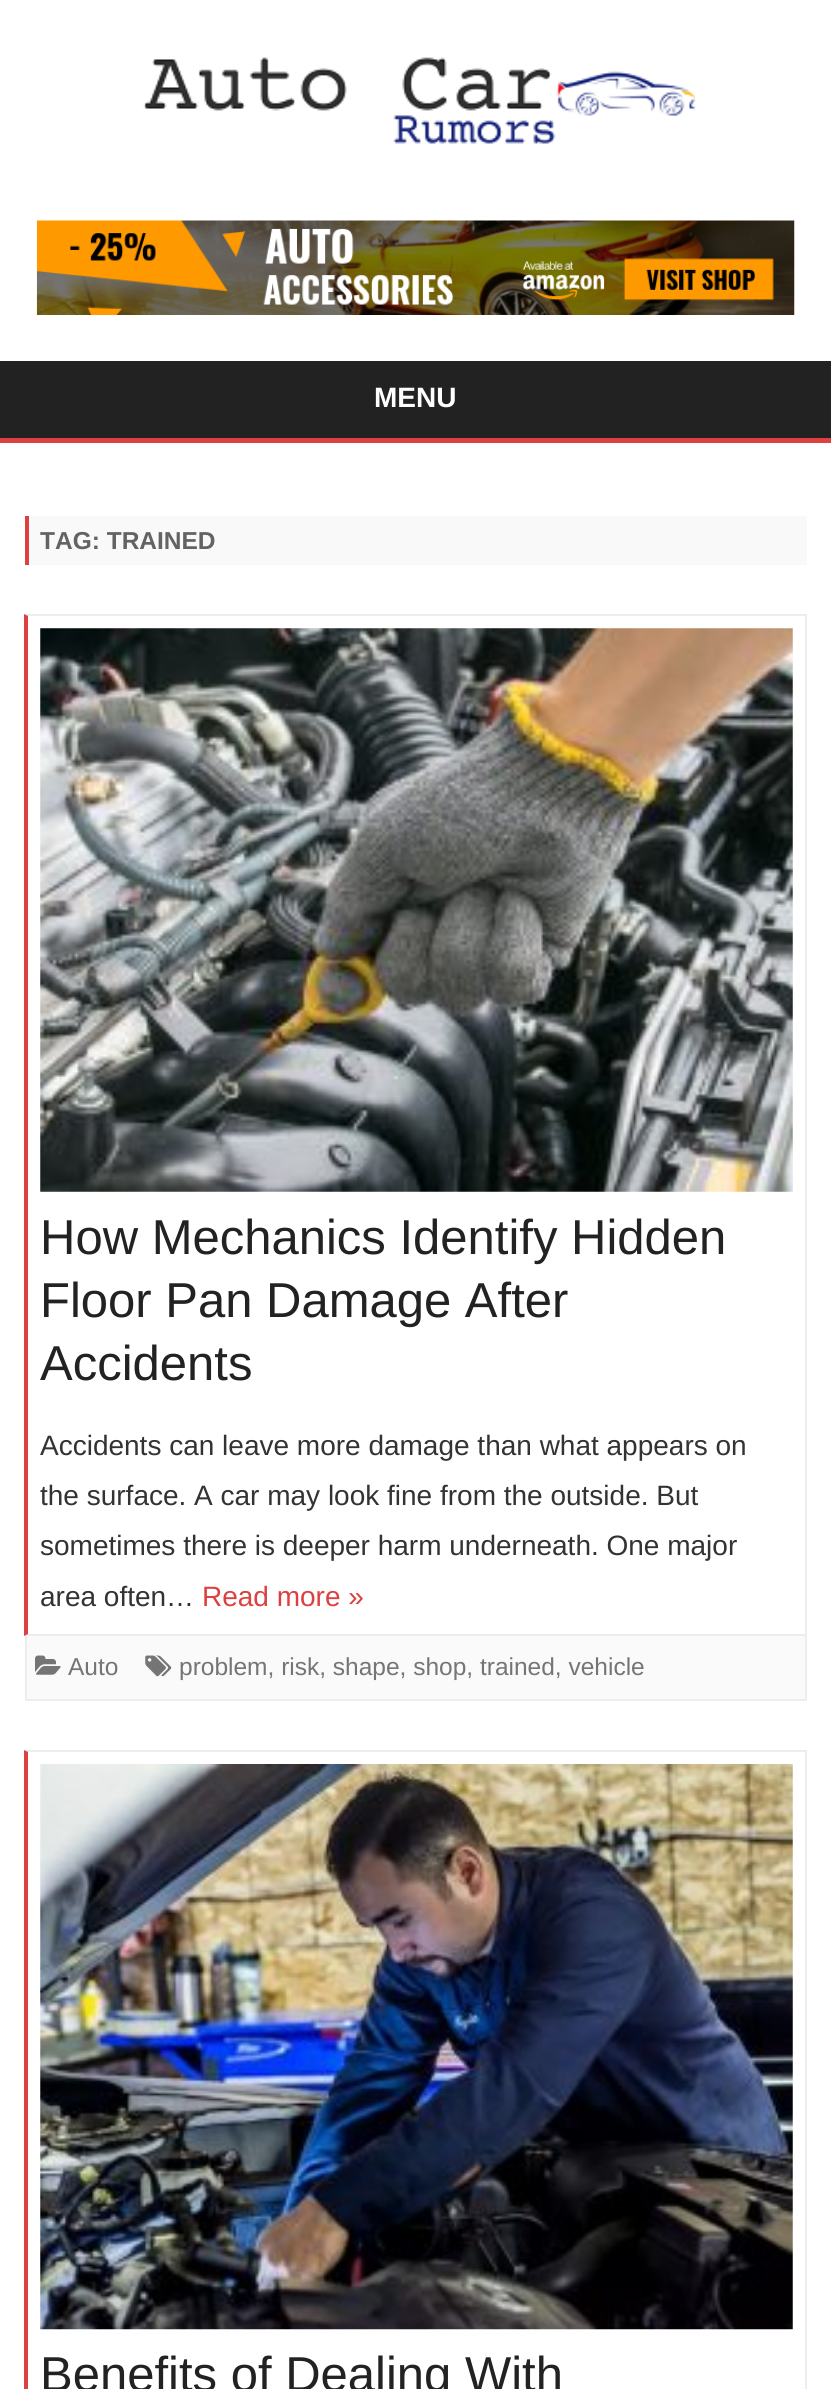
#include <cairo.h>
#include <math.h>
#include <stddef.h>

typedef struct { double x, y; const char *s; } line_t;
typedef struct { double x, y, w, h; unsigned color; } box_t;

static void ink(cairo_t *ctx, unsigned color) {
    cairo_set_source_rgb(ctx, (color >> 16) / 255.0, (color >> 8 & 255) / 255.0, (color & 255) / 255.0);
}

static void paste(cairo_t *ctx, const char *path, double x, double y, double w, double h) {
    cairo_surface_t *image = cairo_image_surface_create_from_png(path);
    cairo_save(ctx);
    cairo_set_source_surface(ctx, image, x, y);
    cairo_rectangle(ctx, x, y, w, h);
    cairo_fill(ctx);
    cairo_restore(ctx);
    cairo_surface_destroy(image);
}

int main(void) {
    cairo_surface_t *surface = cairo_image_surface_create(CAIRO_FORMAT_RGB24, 831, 2389);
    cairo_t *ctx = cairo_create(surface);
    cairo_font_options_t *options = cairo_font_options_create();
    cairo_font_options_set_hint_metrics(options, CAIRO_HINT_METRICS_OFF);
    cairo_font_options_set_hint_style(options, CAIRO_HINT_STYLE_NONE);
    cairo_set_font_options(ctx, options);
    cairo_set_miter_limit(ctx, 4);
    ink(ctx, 0xFFFFFF);
    cairo_paint(ctx);
    paste(ctx, "media/1.png", 143, 57, 553, 87);
    paste(ctx, "media/2.png", 36, 220, 759, 95);
    ink(ctx, 0x222222);
    cairo_rectangle(ctx, 0, 361, 831, 77);
    cairo_fill(ctx);
    cairo_select_font_face(ctx, "Arimo", CAIRO_FONT_SLANT_NORMAL, CAIRO_FONT_WEIGHT_BOLD);
    cairo_set_font_size(ctx, 28);
    ink(ctx, 0xFFFFFF);
    cairo_move_to(ctx, 374, 407);
    cairo_show_text(ctx, "MENU");
    {
        static const box_t items[] = {
            {0, 438, 831, 5, 0xDD4040},
            {29, 516, 778, 49, 0xF9F9F9},
            {25, 516, 4, 49, 0xDD4040},
        };
        for (size_t i = 0; i < sizeof items / sizeof *items; i++) {
            ink(ctx, items[i].color);
            cairo_rectangle(ctx, items[i].x, items[i].y, items[i].w, items[i].h);
            cairo_fill(ctx);
        }
    }
    cairo_set_font_size(ctx, 24.5);
    ink(ctx, 0x636363);
    cairo_move_to(ctx, 40, 549);
    cairo_show_text(ctx, "TAG: TRAINED");
    ink(ctx, 0xEDEDED);
    cairo_new_path(ctx);
    cairo_move_to(ctx, 24, 614);
    cairo_line_to(ctx, 807, 614);
    cairo_line_to(ctx, 805, 616);
    cairo_line_to(ctx, 28, 616);
    cairo_close_path(ctx);
    cairo_fill(ctx);
    cairo_rectangle(ctx, 805, 614, 2, 1022);
    cairo_fill(ctx);
    cairo_new_path(ctx);
    cairo_move_to(ctx, 807, 1636);
    cairo_line_to(ctx, 24, 1636);
    cairo_line_to(ctx, 28, 1634);
    cairo_line_to(ctx, 805, 1634);
    cairo_close_path(ctx);
    cairo_fill(ctx);
    ink(ctx, 0xDD4040);
    cairo_new_path(ctx);
    cairo_move_to(ctx, 24, 1636);
    cairo_line_to(ctx, 24, 614);
    cairo_line_to(ctx, 28, 616);
    cairo_line_to(ctx, 28, 1634);
    cairo_close_path(ctx);
    cairo_fill(ctx);
    paste(ctx, "media/3.png", 40, 628, 753, 564);
    cairo_select_font_face(ctx, "Arimo", CAIRO_FONT_SLANT_NORMAL, CAIRO_FONT_WEIGHT_NORMAL);
    cairo_set_font_size(ctx, 49);
    ink(ctx, 0x222222);
    {
        static const line_t items[] = {
            {40, 1254, "How Mechanics Identify Hidden"},
            {40, 1317, "Floor Pan Damage After"},
            {40, 1380, "Accidents"},
        };
        for (size_t i = 0; i < sizeof items / sizeof *items; i++) {
            cairo_move_to(ctx, items[i].x, items[i].y);
            cairo_show_text(ctx, items[i].s);
        }
    }
    cairo_set_font_size(ctx, 28);
    ink(ctx, 0x333333);
    {
        static const line_t items[] = {
            {40, 1455, "Accidents can leave more damage than what appears on"},
            {40, 1505, "the surface. A car may look fine from the outside. But"},
            {40, 1555, "sometimes there is deeper harm underneath. One major"},
            {40, 1606, "area often…"},
        };
        for (size_t i = 0; i < sizeof items / sizeof *items; i++) {
            cairo_move_to(ctx, items[i].x, items[i].y);
            cairo_show_text(ctx, items[i].s);
        }
    }
    ink(ctx, 0xDD4040);
    cairo_move_to(ctx, 202, 1606);
    cairo_show_text(ctx, "Read more »");
    {
        static const box_t items[] = {
            {27, 1636, 778, 63, 0xFAFAFA},
            {805, 1636, 2, 65, 0xEDEDED},
            {25, 1699, 782, 2, 0xEDEDED},
            {25, 1636, 2, 65, 0xEDEDED},
        };
        for (size_t i = 0; i < sizeof items / sizeof *items; i++) {
            ink(ctx, items[i].color);
            cairo_rectangle(ctx, items[i].x, items[i].y, items[i].w, items[i].h);
            cairo_fill(ctx);
        }
    }
    paste(ctx, "media/4.png", 35, 1655, 26, 20);
    cairo_set_font_size(ctx, 24.5);
    ink(ctx, 0x757575);
    cairo_move_to(ctx, 68, 1675);
    cairo_show_text(ctx, "Auto");
    paste(ctx, "media/5.png", 145, 1655, 27, 22);
    cairo_move_to(ctx, 179, 1675);
    cairo_show_text(ctx, "problem, risk, shape, shop, trained, vehicle");
    ink(ctx, 0xEDEDED);
    cairo_new_path(ctx);
    cairo_move_to(ctx, 24, 1750);
    cairo_line_to(ctx, 807, 1750);
    cairo_line_to(ctx, 805, 1752);
    cairo_line_to(ctx, 28, 1752);
    cairo_close_path(ctx);
    cairo_fill(ctx);
    cairo_rectangle(ctx, 805, 1750, 2, 639);
    cairo_fill(ctx);
    ink(ctx, 0xDD4040);
    cairo_new_path(ctx);
    cairo_move_to(ctx, 24, 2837);
    cairo_line_to(ctx, 24, 1750);
    cairo_line_to(ctx, 28, 1752);
    cairo_line_to(ctx, 28, 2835);
    cairo_close_path(ctx);
    cairo_fill(ctx);
    paste(ctx, "media/6.png", 40, 1764, 753, 566);
    cairo_set_font_size(ctx, 49);
    ink(ctx, 0x222222);
    cairo_move_to(ctx, 40, 2391);
    cairo_show_text(ctx, "Benefits of Dealing With");
    cairo_surface_write_to_png(surface, "image.png");
    cairo_font_options_destroy(options);
    cairo_destroy(ctx);
    cairo_surface_destroy(surface);
    return 0;
}
